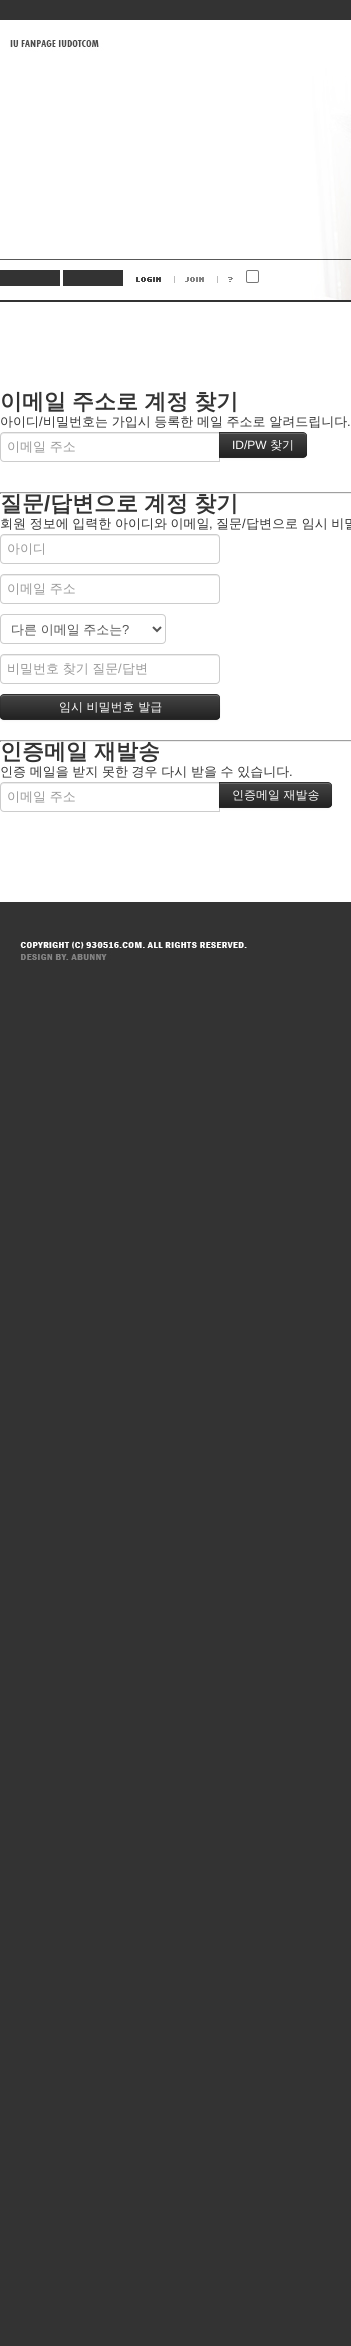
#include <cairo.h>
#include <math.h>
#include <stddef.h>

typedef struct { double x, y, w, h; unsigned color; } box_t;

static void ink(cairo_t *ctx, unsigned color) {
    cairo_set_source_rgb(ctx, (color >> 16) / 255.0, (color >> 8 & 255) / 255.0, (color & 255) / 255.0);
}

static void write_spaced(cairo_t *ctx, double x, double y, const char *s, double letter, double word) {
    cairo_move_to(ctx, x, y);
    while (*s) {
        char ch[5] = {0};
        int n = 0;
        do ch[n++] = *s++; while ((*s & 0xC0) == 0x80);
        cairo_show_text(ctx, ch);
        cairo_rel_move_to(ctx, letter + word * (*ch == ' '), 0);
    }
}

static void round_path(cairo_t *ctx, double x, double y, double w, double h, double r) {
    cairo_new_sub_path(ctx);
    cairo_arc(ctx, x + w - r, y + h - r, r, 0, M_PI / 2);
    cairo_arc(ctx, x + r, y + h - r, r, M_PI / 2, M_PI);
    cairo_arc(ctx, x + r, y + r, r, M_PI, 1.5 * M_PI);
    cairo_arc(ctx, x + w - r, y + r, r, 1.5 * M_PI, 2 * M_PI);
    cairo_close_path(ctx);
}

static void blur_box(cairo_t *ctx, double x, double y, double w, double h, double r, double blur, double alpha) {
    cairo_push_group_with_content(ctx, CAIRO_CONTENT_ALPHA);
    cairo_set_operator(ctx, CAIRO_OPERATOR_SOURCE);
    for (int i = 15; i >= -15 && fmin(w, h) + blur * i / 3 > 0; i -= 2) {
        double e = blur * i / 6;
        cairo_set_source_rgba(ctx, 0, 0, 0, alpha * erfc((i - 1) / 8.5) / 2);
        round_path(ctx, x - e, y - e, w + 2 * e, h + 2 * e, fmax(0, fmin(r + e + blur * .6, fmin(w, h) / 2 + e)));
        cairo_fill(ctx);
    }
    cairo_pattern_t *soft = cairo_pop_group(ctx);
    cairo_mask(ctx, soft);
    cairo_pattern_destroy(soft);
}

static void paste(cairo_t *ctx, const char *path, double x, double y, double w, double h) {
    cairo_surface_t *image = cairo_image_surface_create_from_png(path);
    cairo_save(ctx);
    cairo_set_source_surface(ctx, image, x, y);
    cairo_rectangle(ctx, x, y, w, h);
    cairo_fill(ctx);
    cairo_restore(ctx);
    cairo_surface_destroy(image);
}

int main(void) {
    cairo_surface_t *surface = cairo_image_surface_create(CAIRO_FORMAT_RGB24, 351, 2346);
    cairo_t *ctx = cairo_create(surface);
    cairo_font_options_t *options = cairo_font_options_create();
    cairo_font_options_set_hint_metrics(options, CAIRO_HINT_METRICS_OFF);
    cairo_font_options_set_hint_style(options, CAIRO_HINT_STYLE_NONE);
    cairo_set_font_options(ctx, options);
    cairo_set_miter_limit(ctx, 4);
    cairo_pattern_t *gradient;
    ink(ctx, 0x333333);
    cairo_paint(ctx);
    ink(ctx, 0xFFFFFF);
    cairo_rectangle(ctx, 0, 20, 351, 882);
    cairo_fill(ctx);
    paste(ctx, "media/1.png", 0, 40, 351, 262);
    ink(ctx, 0x333333);
    cairo_rectangle(ctx, 0, 270, 60, 16);
    cairo_fill(ctx);
    cairo_rectangle(ctx, 63, 270, 60, 16);
    cairo_fill(ctx);
    paste(ctx, "media/2.png", 136, 277, 25, 5);
    paste(ctx, "media/3.png", 174, 276, 30, 7);
    paste(ctx, "media/4.png", 217, 276, 16, 7);
    round_path(ctx, 246.5, 270.5, 12, 12, 1.5);
    ink(ctx, 0x767676);
    cairo_set_line_width(ctx, 1);
    cairo_stroke(ctx);
    cairo_select_font_face(ctx, "WenQuanYi Zen Hei", CAIRO_FONT_SLANT_NORMAL, CAIRO_FONT_WEIGHT_BOLD);
    cairo_set_font_size(ctx, 22);
    ink(ctx, 0x333333);
    write_spaced(ctx, 0, 409, "이메일 주소로 계정 찾기", 0, -0.5);
    cairo_select_font_face(ctx, "WenQuanYi Zen Hei Medium", CAIRO_FONT_SLANT_NORMAL, CAIRO_FONT_WEIGHT_NORMAL);
    cairo_set_font_size(ctx, 13);
    cairo_move_to(ctx, 0, 426);
    cairo_show_text(ctx, "아이디");
    cairo_select_font_face(ctx, "Liberation Sans", CAIRO_FONT_SLANT_NORMAL, CAIRO_FONT_WEIGHT_NORMAL);
    cairo_move_to(ctx, 39, 426);
    cairo_show_text(ctx, "/");
    cairo_select_font_face(ctx, "WenQuanYi Zen Hei Medium", CAIRO_FONT_SLANT_NORMAL, CAIRO_FONT_WEIGHT_NORMAL);
    write_spaced(ctx, 43, 426, "비밀번호는 가입시 등록한 메일 주소로 알려드립니다", 0, -0.25);
    cairo_select_font_face(ctx, "Liberation Sans", CAIRO_FONT_SLANT_NORMAL, CAIRO_FONT_WEIGHT_NORMAL);
    cairo_move_to(ctx, 347, 426);
    cairo_show_text(ctx, ".");
    ink(ctx, 0xECECEC);
    cairo_new_path(ctx);
    cairo_move_to(ctx, 4, 434);
    cairo_line_to(ctx, 219, 434);
    cairo_line_to(ctx, 219, 433);
    cairo_line_to(ctx, 4, 433);
    cairo_curve_to(ctx, 2, 433, 1, 434, 1, 436);
    cairo_line_to(ctx, 1, 437);
    cairo_curve_to(ctx, 1, 435, 2, 434, 4, 434);
    cairo_close_path(ctx);
    cairo_fill(ctx);
    cairo_new_path(ctx);
    cairo_move_to(ctx, 4, 432.5);
    cairo_line_to(ctx, 219.5, 432.5);
    cairo_line_to(ctx, 219.5, 461.5);
    cairo_line_to(ctx, 4, 461.5);
    cairo_curve_to(ctx, 2, 461.5, 0.5, 460, 0.5, 458);
    cairo_line_to(ctx, 0.5, 436);
    cairo_curve_to(ctx, 0.5, 434, 2, 432.5, 4, 432.5);
    cairo_close_path(ctx);
    ink(ctx, 0xCCCCCC);
    cairo_stroke(ctx);
    cairo_select_font_face(ctx, "WenQuanYi Zen Hei Medium", CAIRO_FONT_SLANT_NORMAL, CAIRO_FONT_WEIGHT_NORMAL);
    ink(ctx, 0x999999);
    write_spaced(ctx, 7, 451, "이메일 주소", 0, -0.25);
    ink(ctx, 0x000000);
    blur_box(ctx, 219, 433, 88, 26, 4, 1, 0.05);
    ink(ctx, 0x363636);
    cairo_new_path(ctx);
    cairo_move_to(ctx, 219, 432);
    cairo_line_to(ctx, 303, 432);
    cairo_curve_to(ctx, 305, 432, 307, 434, 307, 436);
    cairo_line_to(ctx, 307, 454);
    cairo_curve_to(ctx, 307, 456, 305, 458, 303, 458);
    cairo_line_to(ctx, 219, 458);
    cairo_close_path(ctx);
    cairo_fill(ctx);
    cairo_save(ctx);
    cairo_new_path(ctx);
    cairo_move_to(ctx, 219, 432);
    cairo_line_to(ctx, 303, 432);
    cairo_curve_to(ctx, 305, 432, 307, 434, 307, 436);
    cairo_line_to(ctx, 307, 454);
    cairo_curve_to(ctx, 307, 456, 305, 458, 303, 458);
    cairo_line_to(ctx, 219, 458);
    cairo_close_path(ctx);
    cairo_clip(ctx);
    gradient = cairo_pattern_create_linear(263, 433, 263, 457);
    cairo_pattern_add_color_stop_rgba(gradient, 0, 0.267, 0.267, 0.267, 1);
    cairo_pattern_add_color_stop_rgba(gradient, 1, 0.133, 0.133, 0.133, 1);
    cairo_set_source(ctx, gradient);
    cairo_pattern_destroy(gradient);
    cairo_rectangle(ctx, 219, 433, 88, 24);
    cairo_fill(ctx);
    cairo_restore(ctx);
    ink(ctx, 0x696969);
    cairo_new_path(ctx);
    cairo_move_to(ctx, 220, 434);
    cairo_line_to(ctx, 303, 434);
    cairo_curve_to(ctx, 305, 434, 306, 435, 306, 437);
    cairo_line_to(ctx, 306, 436);
    cairo_curve_to(ctx, 306, 434, 305, 433, 303, 433);
    cairo_line_to(ctx, 220, 433);
    cairo_close_path(ctx);
    cairo_fill(ctx);
    cairo_set_source_rgba(ctx, 0, 0, 0, 0.1);
    cairo_new_path(ctx);
    cairo_move_to(ctx, 219, 432);
    cairo_line_to(ctx, 220, 433);
    cairo_line_to(ctx, 303, 433);
    cairo_line_to(ctx, 305, 434);
    cairo_line_to(ctx, 306, 433);
    cairo_line_to(ctx, 303, 432);
    cairo_close_path(ctx);
    cairo_fill(ctx);
    cairo_new_path(ctx);
    cairo_move_to(ctx, 307, 454);
    cairo_line_to(ctx, 307, 436);
    cairo_curve_to(ctx, 307, 435, 306.5, 434, 306, 433);
    cairo_line_to(ctx, 305, 434);
    cairo_curve_to(ctx, 307, 435.5, 306, 443, 306, 445);
    cairo_curve_to(ctx, 306, 447, 307, 454.5, 305, 456);
    cairo_line_to(ctx, 306, 457);
    cairo_curve_to(ctx, 306.5, 456, 307, 455, 307, 454);
    cairo_close_path(ctx);
    cairo_fill(ctx);
    cairo_set_source_rgba(ctx, 0, 0, 0, 0.25);
    cairo_new_path(ctx);
    cairo_move_to(ctx, 303, 458);
    cairo_line_to(ctx, 306, 457);
    cairo_line_to(ctx, 305, 456);
    cairo_line_to(ctx, 303, 457);
    cairo_line_to(ctx, 220, 457);
    cairo_line_to(ctx, 219, 458);
    cairo_close_path(ctx);
    cairo_fill(ctx);
    cairo_set_source_rgba(ctx, 0, 0, 0, 0.1);
    cairo_new_path(ctx);
    cairo_move_to(ctx, 219, 432);
    cairo_line_to(ctx, 219, 458);
    cairo_line_to(ctx, 220, 457);
    cairo_line_to(ctx, 220, 433);
    cairo_close_path(ctx);
    cairo_fill(ctx);
    cairo_select_font_face(ctx, "Liberation Sans", CAIRO_FONT_SLANT_NORMAL, CAIRO_FONT_WEIGHT_NORMAL);
    cairo_set_font_size(ctx, 12);
    ink(ctx, 0xFFFFFF);
    cairo_move_to(ctx, 232, 449);
    cairo_show_text(ctx, "ID/PW");
    cairo_select_font_face(ctx, "WenQuanYi Zen Hei Medium", CAIRO_FONT_SLANT_NORMAL, CAIRO_FONT_WEIGHT_NORMAL);
    cairo_move_to(ctx, 270, 449);
    cairo_show_text(ctx, "찾기");
    {
        static const box_t items[] = {
            {0, 492, 351, 1, 0x9F9F9F},
            {0, 493, 351, 1, 0xEEEEEE},
            {0, 492, 1, 2, 0x9F9F9F},
        };
        for (size_t i = 0; i < sizeof items / sizeof *items; i++) {
            ink(ctx, items[i].color);
            cairo_rectangle(ctx, items[i].x, items[i].y, items[i].w, items[i].h);
            cairo_fill(ctx);
        }
    }
    cairo_select_font_face(ctx, "WenQuanYi Zen Hei", CAIRO_FONT_SLANT_NORMAL, CAIRO_FONT_WEIGHT_BOLD);
    cairo_set_font_size(ctx, 22);
    ink(ctx, 0x333333);
    cairo_move_to(ctx, 0, 511);
    cairo_show_text(ctx, "질문");
    cairo_select_font_face(ctx, "Liberation Sans", CAIRO_FONT_SLANT_NORMAL, CAIRO_FONT_WEIGHT_BOLD);
    cairo_move_to(ctx, 44, 511);
    cairo_show_text(ctx, "/");
    cairo_select_font_face(ctx, "WenQuanYi Zen Hei", CAIRO_FONT_SLANT_NORMAL, CAIRO_FONT_WEIGHT_BOLD);
    write_spaced(ctx, 50, 511, "답변으로 계정 찾기", 0, -0.5);
    cairo_select_font_face(ctx, "WenQuanYi Zen Hei Medium", CAIRO_FONT_SLANT_NORMAL, CAIRO_FONT_WEIGHT_NORMAL);
    cairo_set_font_size(ctx, 13);
    write_spaced(ctx, 0, 528, "회원 정보에 입력한 아이디와 이메일", 0, -0.25);
    cairo_select_font_face(ctx, "Liberation Sans", CAIRO_FONT_SLANT_NORMAL, CAIRO_FONT_WEIGHT_NORMAL);
    cairo_move_to(ctx, 209, 528);
    cairo_show_text(ctx, ",");
    cairo_select_font_face(ctx, "WenQuanYi Zen Hei Medium", CAIRO_FONT_SLANT_NORMAL, CAIRO_FONT_WEIGHT_NORMAL);
    cairo_move_to(ctx, 216, 528);
    cairo_show_text(ctx, "질문");
    cairo_select_font_face(ctx, "Liberation Sans", CAIRO_FONT_SLANT_NORMAL, CAIRO_FONT_WEIGHT_NORMAL);
    cairo_move_to(ctx, 242, 528);
    cairo_show_text(ctx, "/");
    cairo_select_font_face(ctx, "WenQuanYi Zen Hei Medium", CAIRO_FONT_SLANT_NORMAL, CAIRO_FONT_WEIGHT_NORMAL);
    write_spaced(ctx, 246, 528, "답변으로 임시 비밀", 0, -0.25);
    ink(ctx, 0xECECEC);
    cairo_new_path(ctx);
    cairo_move_to(ctx, 4, 536);
    cairo_line_to(ctx, 216, 536);
    cairo_curve_to(ctx, 218, 536, 219, 537, 219, 539);
    cairo_line_to(ctx, 219, 538);
    cairo_curve_to(ctx, 219, 536, 218, 535, 216, 535);
    cairo_line_to(ctx, 4, 535);
    cairo_curve_to(ctx, 2, 535, 1, 536, 1, 538);
    cairo_line_to(ctx, 1, 539);
    cairo_curve_to(ctx, 1, 537, 2, 536, 4, 536);
    cairo_close_path(ctx);
    cairo_fill(ctx);
    round_path(ctx, 0.5, 534.5, 219, 29, 3.5);
    ink(ctx, 0xCCCCCC);
    cairo_stroke(ctx);
    ink(ctx, 0x999999);
    cairo_move_to(ctx, 7, 553);
    cairo_show_text(ctx, "아이디");
    ink(ctx, 0xECECEC);
    cairo_new_path(ctx);
    cairo_move_to(ctx, 4, 576);
    cairo_line_to(ctx, 216, 576);
    cairo_curve_to(ctx, 218, 576, 219, 577, 219, 579);
    cairo_line_to(ctx, 219, 578);
    cairo_curve_to(ctx, 219, 576, 218, 575, 216, 575);
    cairo_line_to(ctx, 4, 575);
    cairo_curve_to(ctx, 2, 575, 1, 576, 1, 578);
    cairo_line_to(ctx, 1, 579);
    cairo_curve_to(ctx, 1, 577, 2, 576, 4, 576);
    cairo_close_path(ctx);
    cairo_fill(ctx);
    round_path(ctx, 0.5, 574.5, 219, 29, 3.5);
    ink(ctx, 0xCCCCCC);
    cairo_stroke(ctx);
    ink(ctx, 0x999999);
    write_spaced(ctx, 7, 593, "이메일 주소", 0, -0.25);
    round_path(ctx, 0.5, 614.5, 165, 29, 3.5);
    ink(ctx, 0xCCCCCC);
    cairo_stroke(ctx);
    cairo_new_path(ctx);
    cairo_move_to(ctx, 153, 627);
    cairo_line_to(ctx, 157, 631);
    cairo_line_to(ctx, 161, 627);
    ink(ctx, 0x555555);
    cairo_set_line_width(ctx, 2);
    cairo_stroke(ctx);
    write_spaced(ctx, 11, 634, "다른 이메일 주소는", 0, -0.25);
    cairo_select_font_face(ctx, "Liberation Sans", CAIRO_FONT_SLANT_NORMAL, CAIRO_FONT_WEIGHT_NORMAL);
    cairo_move_to(ctx, 122, 634);
    cairo_show_text(ctx, "?");
    ink(ctx, 0xECECEC);
    cairo_new_path(ctx);
    cairo_move_to(ctx, 4, 656);
    cairo_line_to(ctx, 216, 656);
    cairo_curve_to(ctx, 218, 656, 219, 657, 219, 659);
    cairo_line_to(ctx, 219, 658);
    cairo_curve_to(ctx, 219, 656, 218, 655, 216, 655);
    cairo_line_to(ctx, 4, 655);
    cairo_curve_to(ctx, 2, 655, 1, 656, 1, 658);
    cairo_line_to(ctx, 1, 659);
    cairo_curve_to(ctx, 1, 657, 2, 656, 4, 656);
    cairo_close_path(ctx);
    cairo_fill(ctx);
    round_path(ctx, 0.5, 654.5, 219, 29, 3.5);
    ink(ctx, 0xCCCCCC);
    cairo_set_line_width(ctx, 1);
    cairo_stroke(ctx);
    cairo_select_font_face(ctx, "WenQuanYi Zen Hei Medium", CAIRO_FONT_SLANT_NORMAL, CAIRO_FONT_WEIGHT_NORMAL);
    ink(ctx, 0x999999);
    write_spaced(ctx, 7, 673, "비밀번호 찾기 질문", 0, -0.25);
    cairo_select_font_face(ctx, "Liberation Sans", CAIRO_FONT_SLANT_NORMAL, CAIRO_FONT_WEIGHT_NORMAL);
    cairo_move_to(ctx, 118, 673);
    cairo_show_text(ctx, "/");
    cairo_select_font_face(ctx, "WenQuanYi Zen Hei Medium", CAIRO_FONT_SLANT_NORMAL, CAIRO_FONT_WEIGHT_NORMAL);
    cairo_move_to(ctx, 122, 673);
    cairo_show_text(ctx, "답변");
    ink(ctx, 0x000000);
    blur_box(ctx, 0, 695, 220, 26, 4, 1, 0.05);
    ink(ctx, 0x363636);
    round_path(ctx, 0, 694, 220, 26, 4);
    cairo_fill(ctx);
    cairo_save(ctx);
    round_path(ctx, 0, 694, 220, 26, 4);
    cairo_clip(ctx);
    gradient = cairo_pattern_create_linear(110, 695, 110, 719);
    cairo_pattern_add_color_stop_rgba(gradient, 0, 0.267, 0.267, 0.267, 1);
    cairo_pattern_add_color_stop_rgba(gradient, 1, 0.133, 0.133, 0.133, 1);
    cairo_set_source(ctx, gradient);
    cairo_pattern_destroy(gradient);
    cairo_rectangle(ctx, 0, 695, 220, 24);
    cairo_fill(ctx);
    cairo_restore(ctx);
    ink(ctx, 0x696969);
    cairo_new_path(ctx);
    cairo_move_to(ctx, 4, 696);
    cairo_line_to(ctx, 216, 696);
    cairo_curve_to(ctx, 218, 696, 219, 697, 219, 699);
    cairo_line_to(ctx, 219, 698);
    cairo_curve_to(ctx, 219, 696, 218, 695, 216, 695);
    cairo_line_to(ctx, 4, 695);
    cairo_curve_to(ctx, 2, 695, 1, 696, 1, 698);
    cairo_line_to(ctx, 1, 699);
    cairo_curve_to(ctx, 1, 697, 2, 696, 4, 696);
    cairo_close_path(ctx);
    cairo_fill(ctx);
    cairo_new_path(ctx);
    cairo_move_to(ctx, 218.5, 718.5);
    cairo_curve_to(ctx, 218, 719, 217, 719.5, 216, 719.5);
    cairo_line_to(ctx, 4, 719.5);
    cairo_curve_to(ctx, 3, 719.5, 2, 719, 1.5, 718.5);
    cairo_set_source_rgba(ctx, 0, 0, 0, 0.25);
    cairo_stroke(ctx);
    cairo_new_path(ctx);
    cairo_move_to(ctx, 1.5, 718.5);
    cairo_curve_to(ctx, -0.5, 716.5, 0.5, 704.5, 0.5, 701);
    cairo_curve_to(ctx, 0.5, 698.5, 0.5, 694.5, 4, 694.5);
    cairo_line_to(ctx, 216, 694.5);
    cairo_curve_to(ctx, 219.5, 694.5, 219.5, 698.5, 219.5, 701);
    cairo_curve_to(ctx, 219.5, 704.5, 220.5, 716.5, 218.5, 718.5);
    cairo_set_source_rgba(ctx, 0, 0, 0, 0.1);
    cairo_stroke(ctx);
    cairo_set_font_size(ctx, 12);
    ink(ctx, 0xFFFFFF);
    cairo_move_to(ctx, 59, 711);
    cairo_show_text(ctx, "임시 비밀번호 발급");
    {
        static const box_t items[] = {
            {0, 740, 351, 1, 0x9F9F9F},
            {0, 741, 351, 1, 0xEEEEEE},
            {0, 740, 1, 2, 0x9F9F9F},
        };
        for (size_t i = 0; i < sizeof items / sizeof *items; i++) {
            ink(ctx, items[i].color);
            cairo_rectangle(ctx, items[i].x, items[i].y, items[i].w, items[i].h);
            cairo_fill(ctx);
        }
    }
    cairo_select_font_face(ctx, "WenQuanYi Zen Hei", CAIRO_FONT_SLANT_NORMAL, CAIRO_FONT_WEIGHT_BOLD);
    cairo_set_font_size(ctx, 22);
    ink(ctx, 0x333333);
    write_spaced(ctx, 0, 759, "인증메일 재발송", 0, -0.5);
    cairo_select_font_face(ctx, "WenQuanYi Zen Hei Medium", CAIRO_FONT_SLANT_NORMAL, CAIRO_FONT_WEIGHT_NORMAL);
    cairo_set_font_size(ctx, 13);
    write_spaced(ctx, 0, 776, "인증 메일을 받지 못한 경우 다시 받을 수 있습니다", 0, -0.25);
    cairo_select_font_face(ctx, "Liberation Sans", CAIRO_FONT_SLANT_NORMAL, CAIRO_FONT_WEIGHT_NORMAL);
    cairo_move_to(ctx, 289, 776);
    cairo_show_text(ctx, ".");
    ink(ctx, 0xECECEC);
    cairo_new_path(ctx);
    cairo_move_to(ctx, 4, 784);
    cairo_line_to(ctx, 219, 784);
    cairo_line_to(ctx, 219, 783);
    cairo_line_to(ctx, 4, 783);
    cairo_curve_to(ctx, 2, 783, 1, 784, 1, 786);
    cairo_line_to(ctx, 1, 787);
    cairo_curve_to(ctx, 1, 785, 2, 784, 4, 784);
    cairo_close_path(ctx);
    cairo_fill(ctx);
    cairo_new_path(ctx);
    cairo_move_to(ctx, 4, 782.5);
    cairo_line_to(ctx, 219.5, 782.5);
    cairo_line_to(ctx, 219.5, 811.5);
    cairo_line_to(ctx, 4, 811.5);
    cairo_curve_to(ctx, 2, 811.5, 0.5, 810, 0.5, 808);
    cairo_line_to(ctx, 0.5, 786);
    cairo_curve_to(ctx, 0.5, 784, 2, 782.5, 4, 782.5);
    cairo_close_path(ctx);
    ink(ctx, 0xCCCCCC);
    cairo_stroke(ctx);
    cairo_select_font_face(ctx, "WenQuanYi Zen Hei Medium", CAIRO_FONT_SLANT_NORMAL, CAIRO_FONT_WEIGHT_NORMAL);
    ink(ctx, 0x999999);
    write_spaced(ctx, 7, 801, "이메일 주소", 0, -0.25);
    ink(ctx, 0x000000);
    blur_box(ctx, 219, 783, 113, 26, 4, 1, 0.05);
    ink(ctx, 0x363636);
    cairo_new_path(ctx);
    cairo_move_to(ctx, 219, 782);
    cairo_line_to(ctx, 328, 782);
    cairo_curve_to(ctx, 330, 782, 332, 784, 332, 786);
    cairo_line_to(ctx, 332, 804);
    cairo_curve_to(ctx, 332, 806, 330, 808, 328, 808);
    cairo_line_to(ctx, 219, 808);
    cairo_close_path(ctx);
    cairo_fill(ctx);
    cairo_save(ctx);
    cairo_new_path(ctx);
    cairo_move_to(ctx, 219, 782);
    cairo_line_to(ctx, 328, 782);
    cairo_curve_to(ctx, 330, 782, 332, 784, 332, 786);
    cairo_line_to(ctx, 332, 804);
    cairo_curve_to(ctx, 332, 806, 330, 808, 328, 808);
    cairo_line_to(ctx, 219, 808);
    cairo_close_path(ctx);
    cairo_clip(ctx);
    gradient = cairo_pattern_create_linear(276, 783, 276, 807);
    cairo_pattern_add_color_stop_rgba(gradient, 0, 0.267, 0.267, 0.267, 1);
    cairo_pattern_add_color_stop_rgba(gradient, 1, 0.133, 0.133, 0.133, 1);
    cairo_set_source(ctx, gradient);
    cairo_pattern_destroy(gradient);
    cairo_rectangle(ctx, 219, 783, 113, 24);
    cairo_fill(ctx);
    cairo_restore(ctx);
    ink(ctx, 0x696969);
    cairo_new_path(ctx);
    cairo_move_to(ctx, 220, 784);
    cairo_line_to(ctx, 328, 784);
    cairo_curve_to(ctx, 330, 784, 331, 785, 331, 787);
    cairo_line_to(ctx, 331, 786);
    cairo_curve_to(ctx, 331, 784, 330, 783, 328, 783);
    cairo_line_to(ctx, 220, 783);
    cairo_close_path(ctx);
    cairo_fill(ctx);
    cairo_set_source_rgba(ctx, 0, 0, 0, 0.1);
    cairo_new_path(ctx);
    cairo_move_to(ctx, 219, 782);
    cairo_line_to(ctx, 220, 783);
    cairo_line_to(ctx, 328, 783);
    cairo_line_to(ctx, 330, 784);
    cairo_line_to(ctx, 331, 783);
    cairo_line_to(ctx, 328, 782);
    cairo_close_path(ctx);
    cairo_fill(ctx);
    cairo_new_path(ctx);
    cairo_move_to(ctx, 332, 804);
    cairo_line_to(ctx, 332, 786);
    cairo_curve_to(ctx, 332, 785, 331.5, 784, 331, 783);
    cairo_line_to(ctx, 330, 784);
    cairo_curve_to(ctx, 332, 785.5, 331, 793, 331, 795);
    cairo_curve_to(ctx, 331, 797, 332, 804.5, 330, 806);
    cairo_line_to(ctx, 331, 807);
    cairo_curve_to(ctx, 331.5, 806, 332, 805, 332, 804);
    cairo_close_path(ctx);
    cairo_fill(ctx);
    cairo_set_source_rgba(ctx, 0, 0, 0, 0.25);
    cairo_new_path(ctx);
    cairo_move_to(ctx, 328, 808);
    cairo_line_to(ctx, 331, 807);
    cairo_line_to(ctx, 330, 806);
    cairo_line_to(ctx, 328, 807);
    cairo_line_to(ctx, 220, 807);
    cairo_line_to(ctx, 219, 808);
    cairo_close_path(ctx);
    cairo_fill(ctx);
    cairo_set_source_rgba(ctx, 0, 0, 0, 0.1);
    cairo_new_path(ctx);
    cairo_move_to(ctx, 219, 782);
    cairo_line_to(ctx, 219, 808);
    cairo_line_to(ctx, 220, 807);
    cairo_line_to(ctx, 220, 783);
    cairo_close_path(ctx);
    cairo_fill(ctx);
    cairo_set_font_size(ctx, 12);
    ink(ctx, 0xFFFFFF);
    cairo_move_to(ctx, 232, 799);
    cairo_show_text(ctx, "인증메일 재발송");
    paste(ctx, "media/5.png", 20, 941, 227, 19);
    cairo_surface_write_to_png(surface, "image.png");
    cairo_font_options_destroy(options);
    cairo_destroy(ctx);
    cairo_surface_destroy(surface);
    return 0;
}
